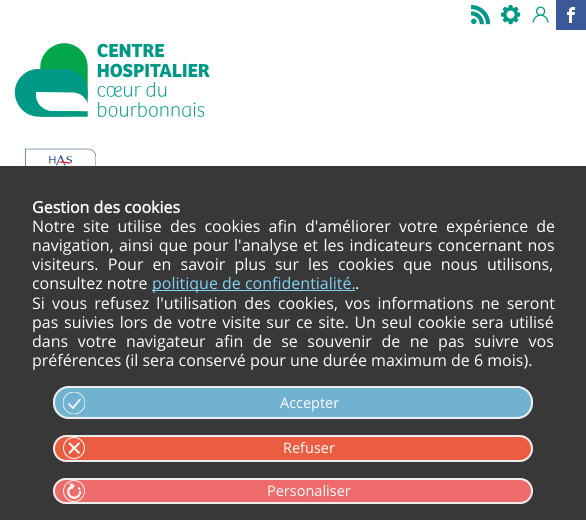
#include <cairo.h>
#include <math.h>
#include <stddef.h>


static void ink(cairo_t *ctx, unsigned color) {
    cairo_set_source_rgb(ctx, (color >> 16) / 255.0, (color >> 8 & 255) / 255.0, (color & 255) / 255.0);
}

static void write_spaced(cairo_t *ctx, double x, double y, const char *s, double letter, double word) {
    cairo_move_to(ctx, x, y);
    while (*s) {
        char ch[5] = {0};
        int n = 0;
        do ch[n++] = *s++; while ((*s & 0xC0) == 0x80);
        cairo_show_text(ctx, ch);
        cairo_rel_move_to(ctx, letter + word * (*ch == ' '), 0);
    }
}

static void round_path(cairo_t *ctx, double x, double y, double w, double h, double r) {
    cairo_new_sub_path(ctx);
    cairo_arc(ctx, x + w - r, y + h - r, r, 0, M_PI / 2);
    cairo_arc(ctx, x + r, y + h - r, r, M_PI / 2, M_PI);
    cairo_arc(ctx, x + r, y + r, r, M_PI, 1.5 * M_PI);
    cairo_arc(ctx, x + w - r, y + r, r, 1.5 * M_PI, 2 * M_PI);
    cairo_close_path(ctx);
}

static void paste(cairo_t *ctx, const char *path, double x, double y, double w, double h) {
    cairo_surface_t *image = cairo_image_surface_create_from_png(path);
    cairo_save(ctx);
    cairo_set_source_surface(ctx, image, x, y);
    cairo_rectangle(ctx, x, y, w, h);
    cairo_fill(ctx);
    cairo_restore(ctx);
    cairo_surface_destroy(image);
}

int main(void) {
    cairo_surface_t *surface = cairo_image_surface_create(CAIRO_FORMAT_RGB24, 586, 520);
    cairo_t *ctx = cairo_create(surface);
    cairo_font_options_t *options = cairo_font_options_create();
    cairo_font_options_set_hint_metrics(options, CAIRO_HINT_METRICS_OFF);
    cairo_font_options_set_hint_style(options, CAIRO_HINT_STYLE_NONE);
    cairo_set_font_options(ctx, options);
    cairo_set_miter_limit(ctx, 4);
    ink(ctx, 0xFFFFFF);
    cairo_paint(ctx);
    paste(ctx, "media/1.png", 471, 5, 20, 20);
    paste(ctx, "media/2.png", 501, 5, 20, 20);
    paste(ctx, "media/3.png", 532, 6, 17, 17);
    ink(ctx, 0x3B5998);
    cairo_rectangle(ctx, 556, 0, 30, 30);
    cairo_fill(ctx);
    paste(ctx, "media/4.png", 567, 7, 8, 16);
    paste(ctx, "media/5.png", 14, 43, 196, 74);
    paste(ctx, "media/6.png", 24, 148, 72, 18);
    ink(ctx, 0x383838);
    cairo_rectangle(ctx, 0, 166, 586, 354);
    cairo_fill(ctx);
    cairo_select_font_face(ctx, "Open Sans", CAIRO_FONT_SLANT_NORMAL, CAIRO_FONT_WEIGHT_BOLD);
    cairo_set_font_size(ctx, 16);
    ink(ctx, 0xFEFEFE);
    cairo_move_to(ctx, 32, 213);
    cairo_show_text(ctx, "Gestion des cookies");
    cairo_select_font_face(ctx, "Open Sans", CAIRO_FONT_SLANT_NORMAL, CAIRO_FONT_WEIGHT_NORMAL);
    write_spaced(ctx, 32, 232, "Notre site utilise des cookies afin d'améliorer votre expérience de", 0, 4);
    write_spaced(ctx, 32, 251, "navigation, ainsi que pour l'analyse et les indicateurs concernant nos", 0, 1.25);
    write_spaced(ctx, 32, 270, "visiteurs. Pour en savoir plus sur les cookies que nous utilisons,", 0, 5);
    cairo_move_to(ctx, 32, 289);
    cairo_show_text(ctx, "consultez notre");
    ink(ctx, 0x83D0F5);
    cairo_rectangle(ctx, 152, 290, 203, 1);
    cairo_fill(ctx);
    cairo_move_to(ctx, 152, 289);
    cairo_show_text(ctx, "politique de confidentialité.");
    ink(ctx, 0xFEFEFE);
    cairo_move_to(ctx, 355, 289);
    cairo_show_text(ctx, ".");
    write_spaced(ctx, 32, 309, "Si vous refusez l'utilisation des cookies, vos informations ne seront", 0, 3);
    write_spaced(ctx, 32, 328, "pas suivies lors de votre visite sur ce site. Un seul cookie sera utilisé", 0, 1.5);
    write_spaced(ctx, 32, 347, "dans votre navigateur afin de se souvenir de ne pas suivre vos", 0, 5.4);
    cairo_move_to(ctx, 32, 366);
    cairo_show_text(ctx, "préférences (il sera conservé pour une durée maximum de 6 mois).");
    ink(ctx, 0x71B2D1);
    round_path(ctx, 53, 386, 480, 33, 16);
    cairo_fill(ctx);
    cairo_new_path(ctx);
    cairo_move_to(ctx, 69, 404);
    cairo_line_to(ctx, 73, 408);
    cairo_line_to(ctx, 80, 399.5);
    ink(ctx, 0xFFFFFF);
    cairo_set_line_width(ctx, 1.7);
    cairo_set_line_cap(ctx, CAIRO_LINE_CAP_ROUND);
    cairo_stroke(ctx);
    cairo_save(ctx);
    cairo_rectangle(ctx, 63, 392, 22, 22);
    cairo_clip(ctx);
    cairo_arc(ctx, 74, 403, 11, 0, 2 * M_PI);
    cairo_set_line_width(ctx, 0.8);
    cairo_set_line_cap(ctx, CAIRO_LINE_CAP_BUTT);
    cairo_stroke(ctx);
    cairo_restore(ctx);
    round_path(ctx, 54, 387, 478, 31, 15);
    ink(ctx, 0xEDEDED);
    cairo_set_line_width(ctx, 2);
    cairo_set_line_cap(ctx, CAIRO_LINE_CAP_BUTT);
    cairo_stroke(ctx);
    cairo_set_font_size(ctx, 14.5);
    ink(ctx, 0xFEFEFE);
    cairo_move_to(ctx, 280, 408);
    cairo_show_text(ctx, "Accepter");
    ink(ctx, 0xEB5D40);
    round_path(ctx, 53, 435, 480, 27, 13.5);
    cairo_fill(ctx);
    paste(ctx, "media/7.png", 63, 437, 22, 22);
    round_path(ctx, 54, 436, 478, 25, 12.5);
    ink(ctx, 0xEDEDED);
    cairo_stroke(ctx);
    ink(ctx, 0xFEFEFE);
    cairo_move_to(ctx, 283, 453);
    cairo_show_text(ctx, "Refuser");
    ink(ctx, 0xED6B6A);
    round_path(ctx, 53, 478, 480, 26, 13);
    cairo_fill(ctx);
    paste(ctx, "media/8.png", 63, 480, 22, 22);
    round_path(ctx, 54, 479, 478, 24, 12);
    ink(ctx, 0xEDEDED);
    cairo_stroke(ctx);
    ink(ctx, 0xFEFEFE);
    cairo_move_to(ctx, 267, 496);
    cairo_show_text(ctx, "Personaliser");
    cairo_surface_write_to_png(surface, "image.png");
    cairo_font_options_destroy(options);
    cairo_destroy(ctx);
    cairo_surface_destroy(surface);
    return 0;
}
